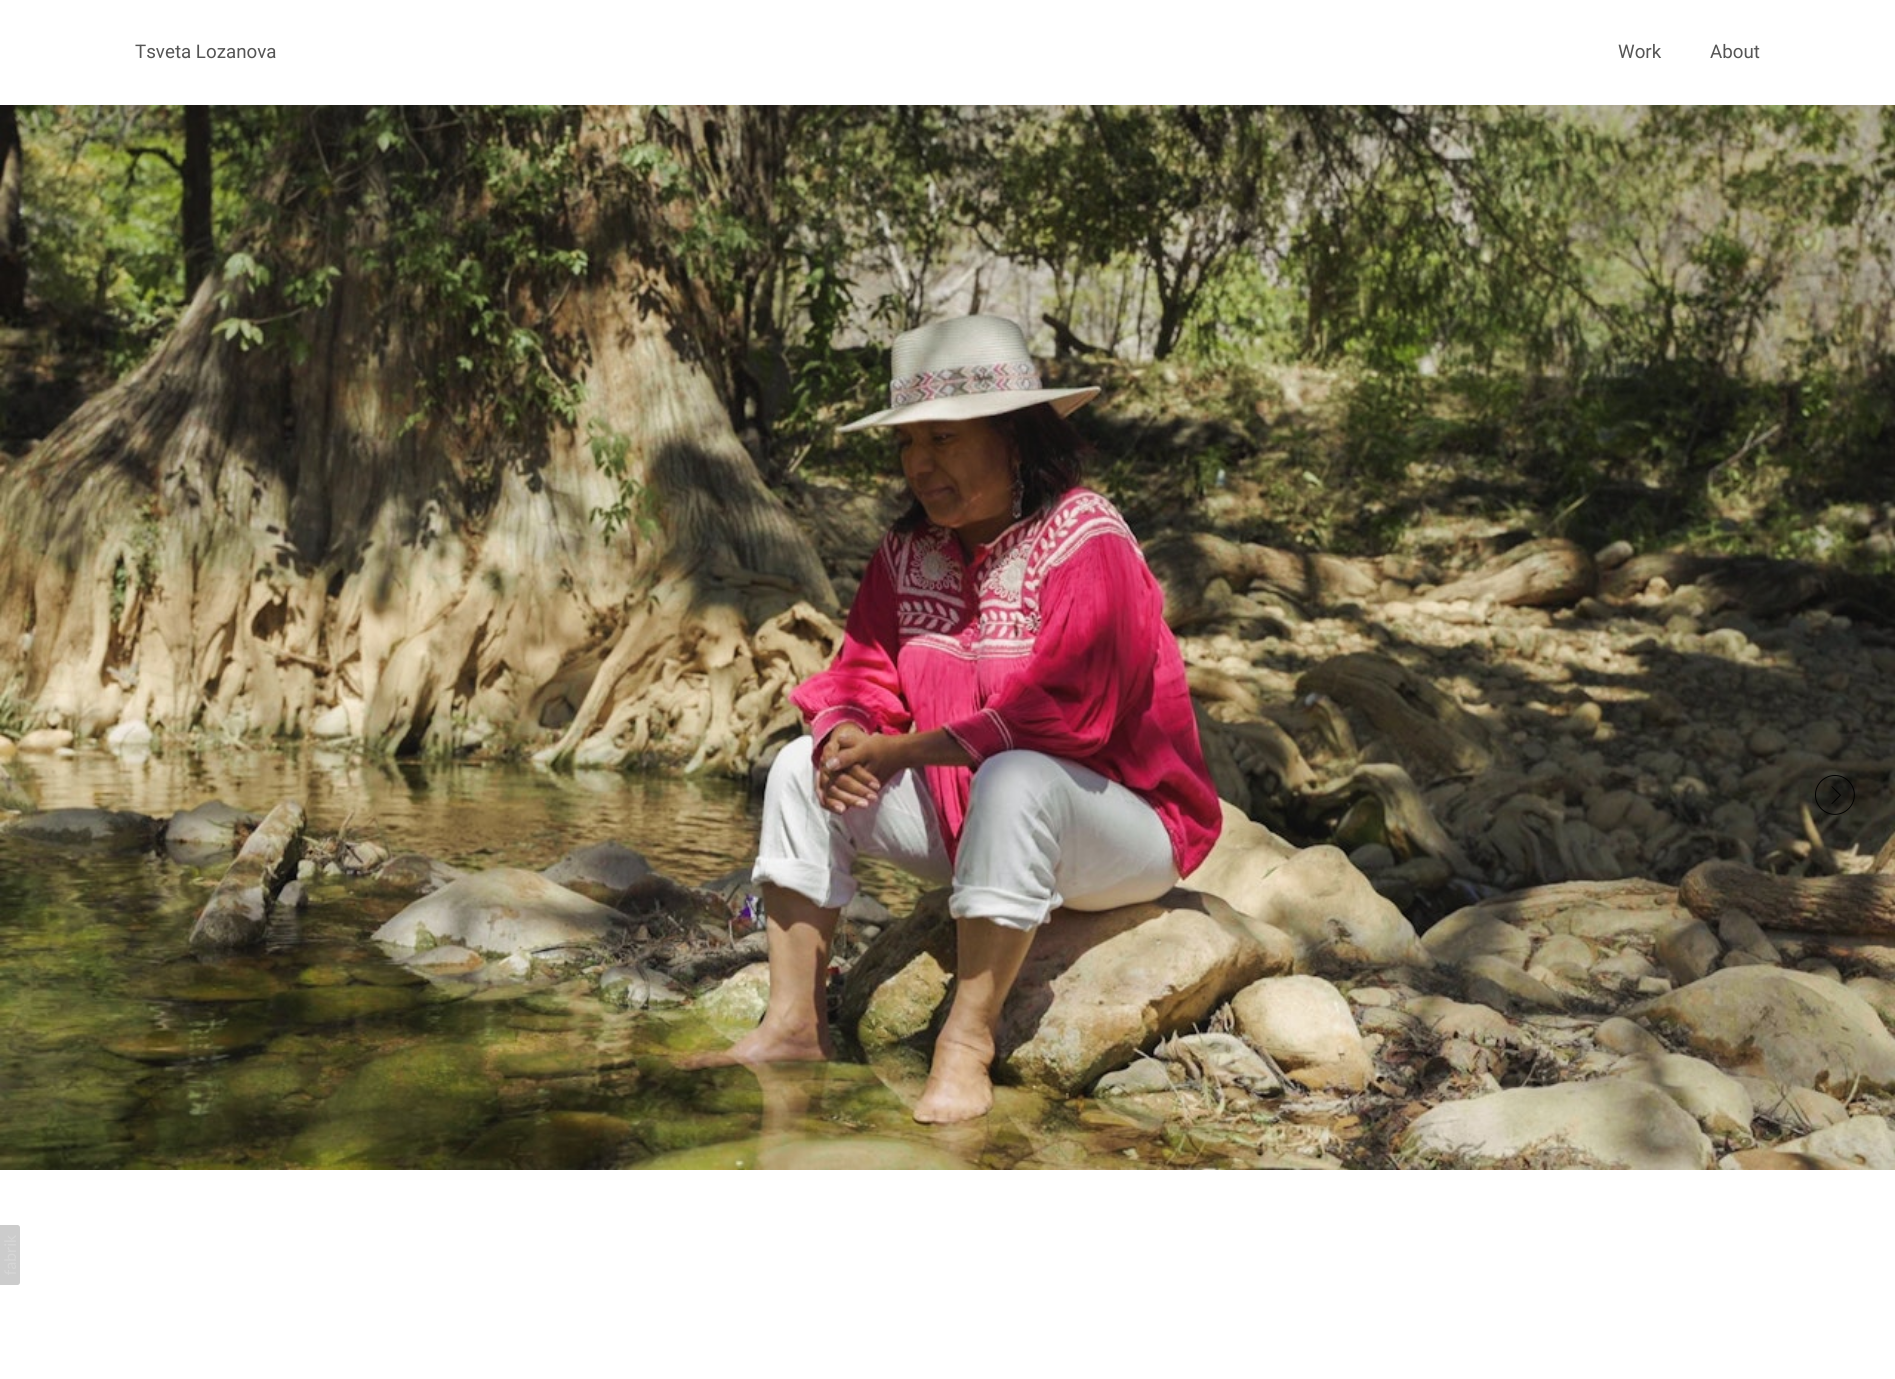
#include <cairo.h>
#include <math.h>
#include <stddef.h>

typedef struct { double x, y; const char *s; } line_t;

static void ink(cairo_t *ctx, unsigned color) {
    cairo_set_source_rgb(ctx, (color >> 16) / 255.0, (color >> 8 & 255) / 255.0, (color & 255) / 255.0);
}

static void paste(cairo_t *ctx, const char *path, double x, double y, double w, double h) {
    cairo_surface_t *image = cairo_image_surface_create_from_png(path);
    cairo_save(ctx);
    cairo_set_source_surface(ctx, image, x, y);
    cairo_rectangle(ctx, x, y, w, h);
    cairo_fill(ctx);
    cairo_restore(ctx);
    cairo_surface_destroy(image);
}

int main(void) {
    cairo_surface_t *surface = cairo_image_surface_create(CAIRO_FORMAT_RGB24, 1895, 1379);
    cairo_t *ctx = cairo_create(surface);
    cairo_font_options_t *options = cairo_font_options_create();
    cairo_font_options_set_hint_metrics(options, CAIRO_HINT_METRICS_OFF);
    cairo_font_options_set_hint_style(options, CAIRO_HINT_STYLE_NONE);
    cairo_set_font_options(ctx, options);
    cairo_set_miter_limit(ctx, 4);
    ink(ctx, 0xFFFFFF);
    cairo_paint(ctx);
    cairo_select_font_face(ctx, "Roboto", CAIRO_FONT_SLANT_NORMAL, CAIRO_FONT_WEIGHT_NORMAL);
    cairo_set_font_size(ctx, 18.75);
    ink(ctx, 0x555555);
    {
        static const line_t items[] = {
            {135, 58, "Tsveta Lozanova"},
            {1618, 58, "Work"},
            {1710, 58, "About"},
        };
        for (size_t i = 0; i < sizeof items / sizeof *items; i++) {
            cairo_move_to(ctx, items[i].x, items[i].y);
            cairo_show_text(ctx, items[i].s);
        }
    }
    paste(ctx, "media/1.png", 0, 105, 1895, 1065);
    paste(ctx, "media/2.png", 1815, 775, 40, 40);
    paste(ctx, "media/3.png", 0, 1225, 20, 60);
    cairo_surface_write_to_png(surface, "image.png");
    cairo_font_options_destroy(options);
    cairo_destroy(ctx);
    cairo_surface_destroy(surface);
    return 0;
}
